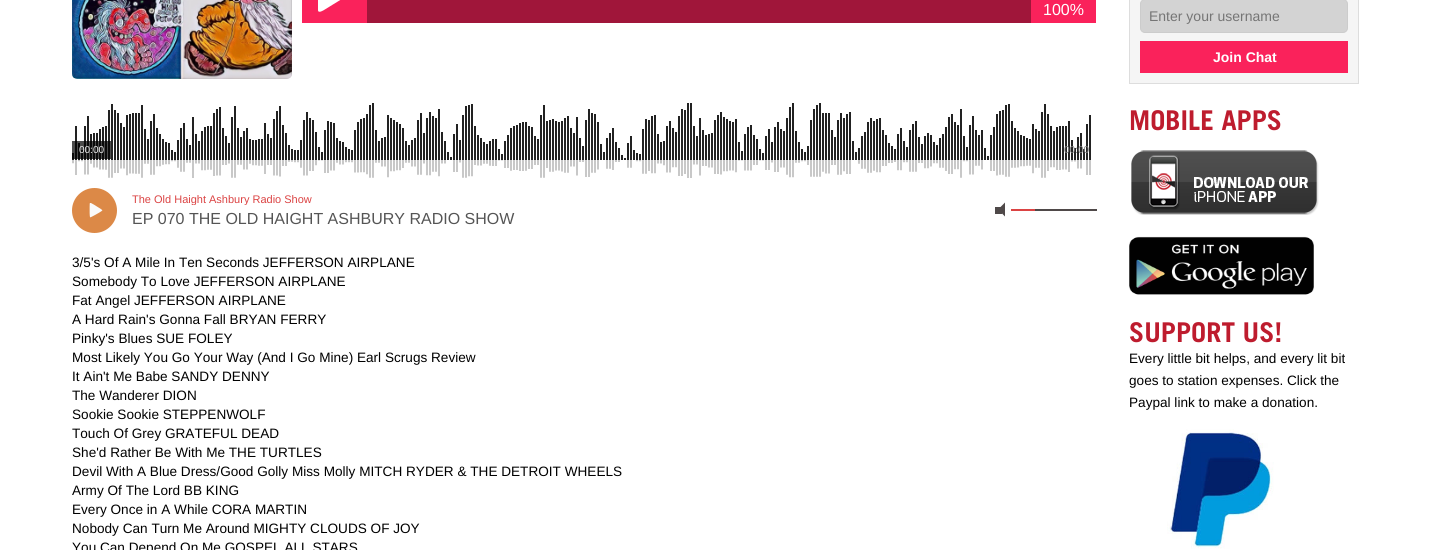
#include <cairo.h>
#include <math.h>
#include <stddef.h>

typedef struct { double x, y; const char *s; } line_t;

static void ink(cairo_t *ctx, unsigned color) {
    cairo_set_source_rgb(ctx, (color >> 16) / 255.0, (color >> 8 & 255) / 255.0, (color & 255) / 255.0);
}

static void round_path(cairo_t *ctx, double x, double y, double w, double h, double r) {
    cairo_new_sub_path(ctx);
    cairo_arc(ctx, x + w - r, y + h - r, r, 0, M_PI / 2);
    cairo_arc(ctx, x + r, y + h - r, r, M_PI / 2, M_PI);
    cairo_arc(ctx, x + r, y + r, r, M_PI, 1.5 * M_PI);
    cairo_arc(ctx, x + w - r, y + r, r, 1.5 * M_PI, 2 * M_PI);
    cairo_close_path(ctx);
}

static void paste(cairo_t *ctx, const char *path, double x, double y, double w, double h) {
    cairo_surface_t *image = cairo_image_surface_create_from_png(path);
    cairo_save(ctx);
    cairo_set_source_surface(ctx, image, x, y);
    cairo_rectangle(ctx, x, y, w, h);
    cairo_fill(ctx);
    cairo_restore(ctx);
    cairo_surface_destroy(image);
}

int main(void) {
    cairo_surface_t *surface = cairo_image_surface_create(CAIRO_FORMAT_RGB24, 1431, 550);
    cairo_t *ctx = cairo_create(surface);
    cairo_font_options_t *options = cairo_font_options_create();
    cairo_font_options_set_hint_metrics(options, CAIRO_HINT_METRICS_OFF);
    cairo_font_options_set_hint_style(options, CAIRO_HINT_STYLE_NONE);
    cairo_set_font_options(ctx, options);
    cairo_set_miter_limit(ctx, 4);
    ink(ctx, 0xFFFFFF);
    cairo_paint(ctx);
    paste(ctx, "media/1.png", 72, 0, 220, 79);
    ink(ctx, 0xFA225B);
    cairo_rectangle(ctx, 302, 0, 65, 23);
    cairo_fill(ctx);
    ink(ctx, 0xFFFFFF);
    cairo_new_path(ctx);
    cairo_move_to(ctx, 324, 10);
    cairo_curve_to(ctx, 324, 10, 318, 14, 318, 10);
    cairo_line_to(ctx, 318, -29);
    cairo_curve_to(ctx, 318, -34, 324, -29, 324, -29);
    cairo_line_to(ctx, 350, -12);
    cairo_curve_to(ctx, 351, -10, 351, -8, 350, -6);
    cairo_close_path(ctx);
    cairo_fill(ctx);
    ink(ctx, 0xA0163A);
    cairo_rectangle(ctx, 367, 0, 664, 23);
    cairo_fill(ctx);
    ink(ctx, 0xFA225B);
    cairo_rectangle(ctx, 1031, 0, 65, 23);
    cairo_fill(ctx);
    cairo_select_font_face(ctx, "Liberation Sans", CAIRO_FONT_SLANT_NORMAL, CAIRO_FONT_WEIGHT_NORMAL);
    cairo_set_font_size(ctx, 16);
    ink(ctx, 0xFFFFFF);
    cairo_move_to(ctx, 1043, 15);
    cairo_show_text(ctx, "100%");
    paste(ctx, "media/2.png", 72, 103, 1019, 75);
    cairo_set_source_rgba(ctx, 0, 0, 0, 0.7);
    cairo_rectangle(ctx, 72, 141, 39, 18);
    cairo_fill(ctx);
    cairo_set_font_size(ctx, 10);
    ink(ctx, 0xEEEEEE);
    cairo_move_to(ctx, 79, 153);
    cairo_show_text(ctx, "00:00");
    ink(ctx, 0x818181);
    cairo_move_to(ctx, 1064, 153);
    cairo_show_text(ctx, "00:00");
    ink(ctx, 0xDC8947);
    cairo_new_path(ctx);
    cairo_arc(ctx, 94.5, 210.5, 22.5, 0, 2 * M_PI);
    cairo_fill(ctx);
    paste(ctx, "media/3.png", 89, 203, 14, 15);
    cairo_save(ctx);
    cairo_rectangle(ctx, 132, 193, 833, 12);
    cairo_clip(ctx);
    cairo_set_font_size(ctx, 11);
    ink(ctx, 0xDB4343);
    cairo_move_to(ctx, 132, 203);
    cairo_show_text(ctx, "The Old Haight Ashbury Radio Show");
    cairo_restore(ctx);
    cairo_set_font_size(ctx, 16);
    ink(ctx, 0x555555);
    cairo_move_to(ctx, 132, 224);
    cairo_show_text(ctx, "EP 070 THE OLD HAIGHT ASHBURY RADIO SHOW");
    ink(ctx, 0x4F4949);
    cairo_rectangle(ctx, 995, 207, 7, 7);
    cairo_fill(ctx);
    cairo_new_path(ctx);
    cairo_move_to(ctx, 1005, 202.5);
    cairo_line_to(ctx, 1005, 216.5);
    cairo_line_to(ctx, 998, 209.5);
    cairo_close_path(ctx);
    cairo_fill(ctx);
    ink(ctx, 0xDB4343);
    cairo_rectangle(ctx, 1011, 209, 24, 2);
    cairo_fill(ctx);
    ink(ctx, 0x4F4949);
    cairo_rectangle(ctx, 1035, 209, 62, 2);
    cairo_fill(ctx);
    cairo_set_font_size(ctx, 13.6);
    ink(ctx, 0x000000);
    {
        static const line_t items[] = {
            {72, 267, "3/5's Of A Mile In Ten Seconds JEFFERSON AIRPLANE"},
            {72, 286, "Somebody To Love JEFFERSON AIRPLANE"},
            {72, 305, "Fat Angel JEFFERSON AIRPLANE"},
            {72, 324, "A Hard Rain's Gonna Fall BRYAN FERRY"},
            {72, 343, "Pinky's Blues SUE FOLEY"},
            {72, 362, "Most Likely You Go Your Way (And I Go Mine) Earl Scrugs Review"},
            {72, 381, "It Ain't Me Babe SANDY DENNY"},
            {72, 400, "The Wanderer DION"},
            {72, 419, "Sookie Sookie STEPPENWOLF"},
            {72, 438, "Touch Of Grey GRATEFUL DEAD"},
            {72, 457, "She'd Rather Be With Me THE TURTLES"},
            {72, 476, "Devil With A Blue Dress/Good Golly Miss Molly MITCH RYDER & THE DETROIT WHEELS"},
            {72, 495, "Army Of The Lord BB KING"},
            {72, 514, "Every Once in A While CORA MARTIN"},
            {72, 533, "Nobody Can Turn Me Around MIGHTY CLOUDS OF JOY"},
            {72, 552, "You Can Depend On Me GOSPEL ALL STARS"},
        };
        for (size_t i = 0; i < sizeof items / sizeof *items; i++) {
            cairo_move_to(ctx, items[i].x, items[i].y);
            cairo_show_text(ctx, items[i].s);
        }
    }
    ink(ctx, 0xF5F5F5);
    cairo_rectangle(ctx, 1129.5, -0.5, 229, 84);
    cairo_fill_preserve(ctx);
    ink(ctx, 0xDDDDDD);
    cairo_set_line_width(ctx, 1);
    cairo_stroke(ctx);
    ink(ctx, 0xD3D3D3);
    round_path(ctx, 1140.5, -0.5, 207, 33, 4.5);
    cairo_fill_preserve(ctx);
    ink(ctx, 0xCCCCCC);
    cairo_stroke(ctx);
    cairo_set_font_size(ctx, 14);
    ink(ctx, 0x757575);
    cairo_move_to(ctx, 1149, 21);
    cairo_show_text(ctx, "Enter your username");
    ink(ctx, 0xFA225B);
    cairo_rectangle(ctx, 1140, 41, 208, 32);
    cairo_fill(ctx);
    cairo_select_font_face(ctx, "Liberation Sans", CAIRO_FONT_SLANT_NORMAL, CAIRO_FONT_WEIGHT_BOLD);
    ink(ctx, 0xFFFFFF);
    cairo_move_to(ctx, 1213, 62);
    cairo_show_text(ctx, "Join Chat");
    cairo_select_font_face(ctx, "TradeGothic", CAIRO_FONT_SLANT_NORMAL, CAIRO_FONT_WEIGHT_BOLD);
    cairo_set_font_size(ctx, 27.25);
    ink(ctx, 0xBE1C2E);
    cairo_move_to(ctx, 1129, 130);
    cairo_show_text(ctx, "MOBILE APPS");
    paste(ctx, "media/4.png", 1131, 150, 188, 65);
    paste(ctx, "media/5.png", 1129, 236, 185, 59);
    cairo_move_to(ctx, 1129, 342);
    cairo_show_text(ctx, "SUPPORT US!");
    cairo_select_font_face(ctx, "Liberation Sans", CAIRO_FONT_SLANT_NORMAL, CAIRO_FONT_WEIGHT_NORMAL);
    cairo_set_font_size(ctx, 13.6);
    ink(ctx, 0x000000);
    {
        static const line_t items[] = {
            {1129, 363, "Every little bit helps, and every lit bit"},
            {1129, 385, "goes to station expenses. Click the"},
            {1129, 407, "Paypal link to make a donation."},
        };
        for (size_t i = 0; i < sizeof items / sizeof *items; i++) {
            cairo_move_to(ctx, items[i].x, items[i].y);
            cairo_show_text(ctx, items[i].s);
        }
    }
    paste(ctx, "media/6.png", 1167, 429, 107, 120);
    cairo_surface_write_to_png(surface, "image.png");
    cairo_font_options_destroy(options);
    cairo_destroy(ctx);
    cairo_surface_destroy(surface);
    return 0;
}
